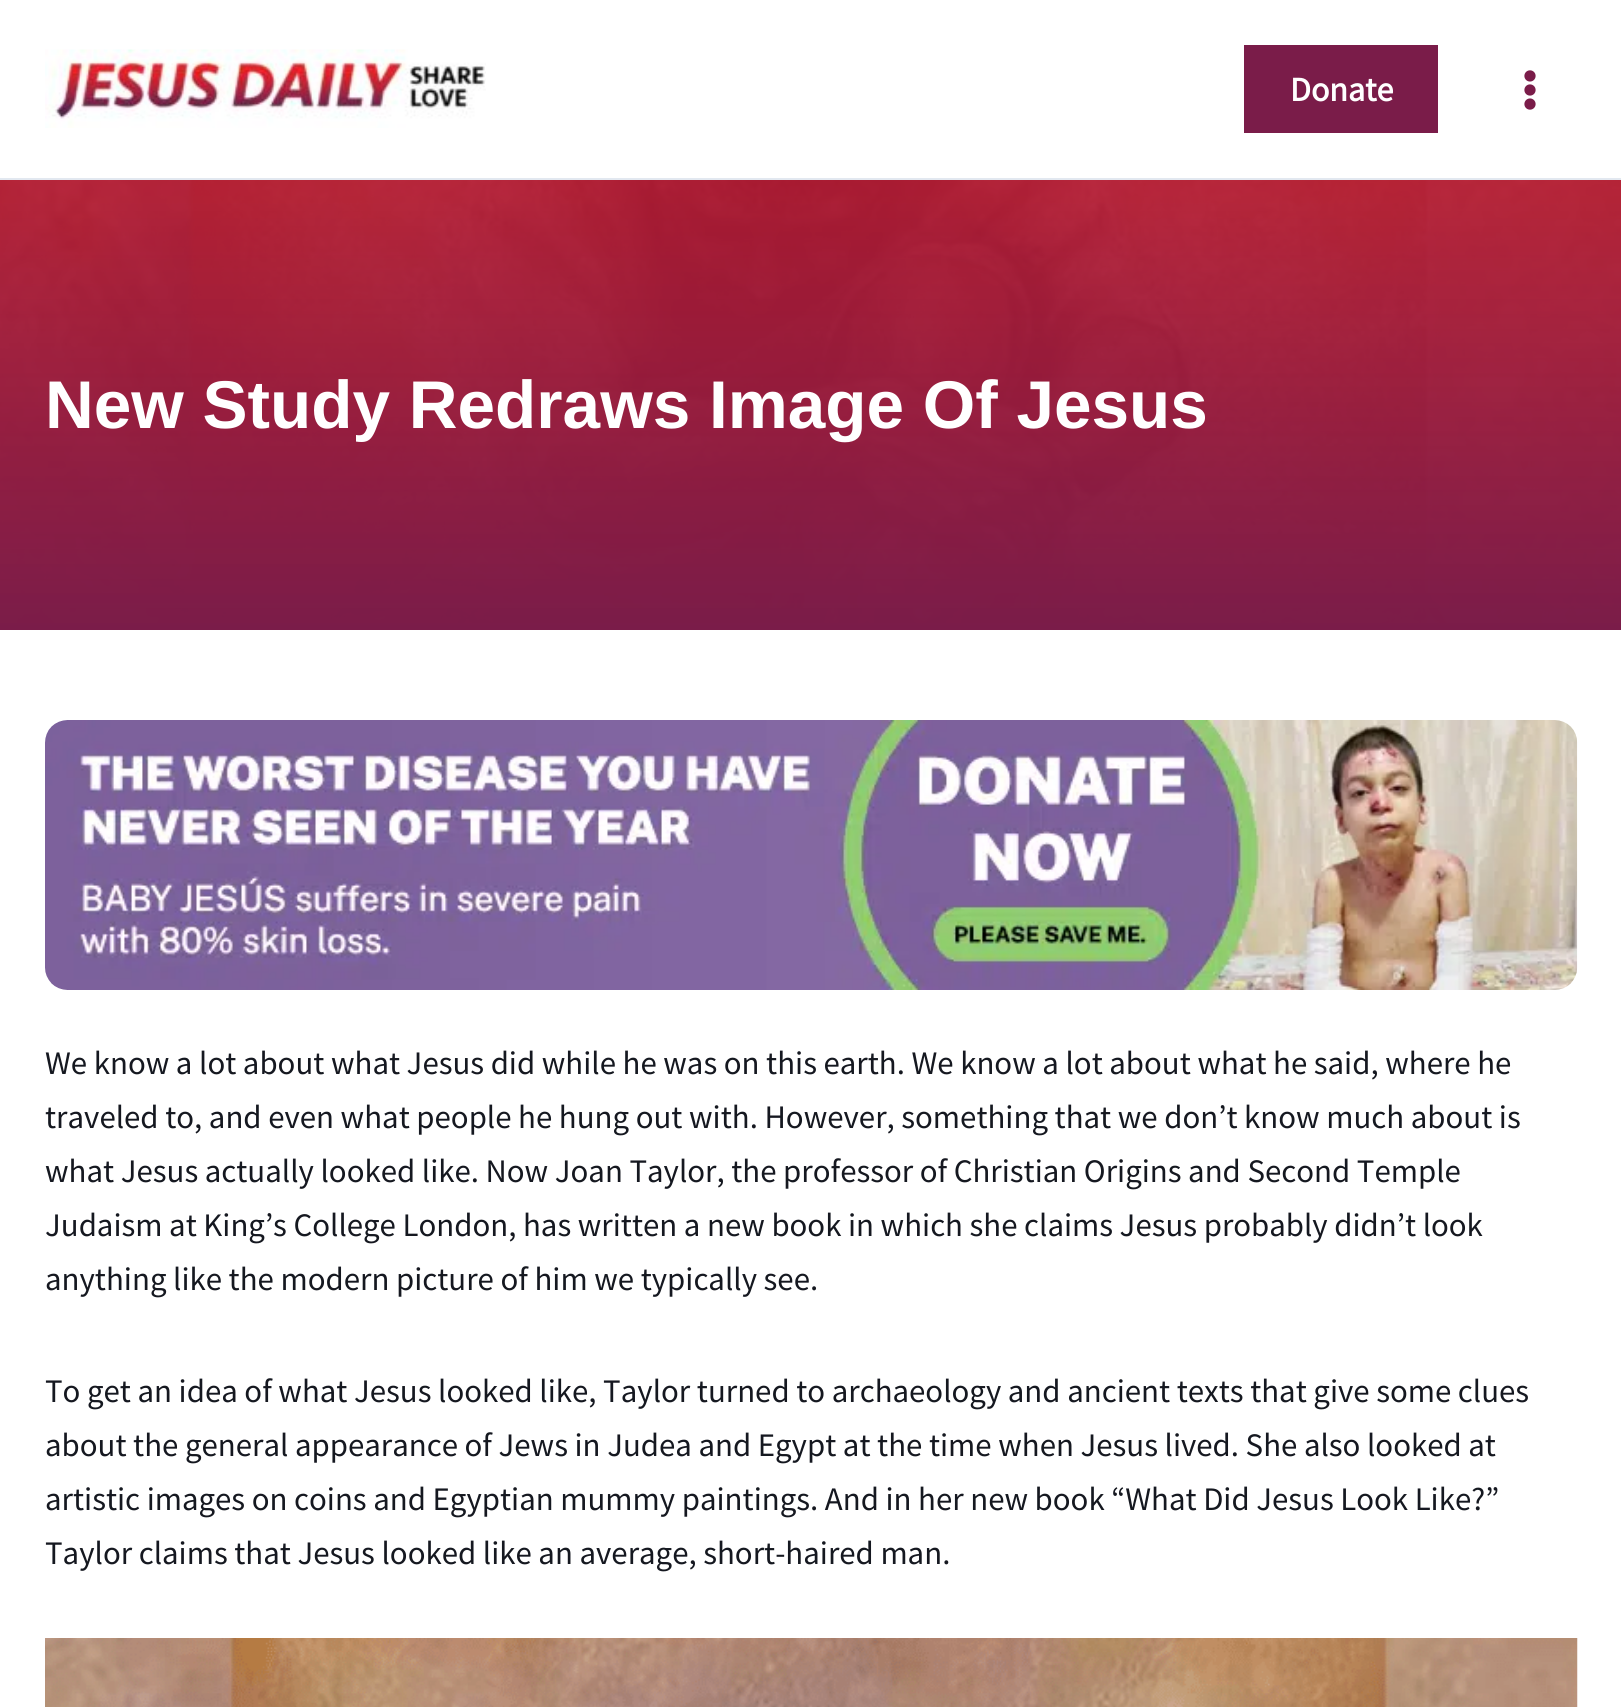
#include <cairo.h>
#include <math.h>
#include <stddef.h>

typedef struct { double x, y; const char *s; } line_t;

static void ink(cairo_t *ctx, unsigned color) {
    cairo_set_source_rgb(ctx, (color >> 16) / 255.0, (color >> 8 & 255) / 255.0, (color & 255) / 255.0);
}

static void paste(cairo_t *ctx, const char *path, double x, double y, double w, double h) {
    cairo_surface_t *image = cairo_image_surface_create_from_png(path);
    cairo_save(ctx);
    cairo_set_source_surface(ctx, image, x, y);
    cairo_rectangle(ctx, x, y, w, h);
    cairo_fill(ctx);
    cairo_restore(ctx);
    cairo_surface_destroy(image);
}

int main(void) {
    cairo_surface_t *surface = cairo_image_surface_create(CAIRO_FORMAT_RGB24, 1621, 1707);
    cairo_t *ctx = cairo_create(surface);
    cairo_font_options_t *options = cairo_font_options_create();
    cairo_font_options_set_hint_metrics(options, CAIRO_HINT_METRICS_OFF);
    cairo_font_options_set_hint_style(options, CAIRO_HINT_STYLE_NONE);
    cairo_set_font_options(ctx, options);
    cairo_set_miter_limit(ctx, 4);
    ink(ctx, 0xFFFFFF);
    cairo_paint(ctx);
    ink(ctx, 0xE2E8F0);
    cairo_rectangle(ctx, 0, 178, 1621, 2);
    cairo_fill(ctx);
    paste(ctx, "media/1.png", 45, 49, 441, 79);
    ink(ctx, 0x7A1C49);
    cairo_rectangle(ctx, 1244, 45, 194, 88);
    cairo_fill(ctx);
    cairo_select_font_face(ctx, "Source Sans Pro", CAIRO_FONT_SLANT_NORMAL, CAIRO_FONT_WEIGHT_BOLD);
    cairo_set_font_size(ctx, 34);
    ink(ctx, 0xFFFFFF);
    cairo_move_to(ctx, 1290, 101);
    cairo_show_text(ctx, "Donate");
    paste(ctx, "media/2.png", 1524, 70, 12, 40);
    paste(ctx, "media/3.png", 0, 180, 1621, 450);
    cairo_select_font_face(ctx, "Liberation Sans", CAIRO_FONT_SLANT_NORMAL, CAIRO_FONT_WEIGHT_BOLD);
    cairo_set_font_size(ctx, 67.5);
    cairo_move_to(ctx, 45, 428);
    cairo_show_text(ctx, "New Study Redraws Image Of Jesus");
    paste(ctx, "media/4.png", 45, 720, 1533, 270);
    cairo_select_font_face(ctx, "Source Sans Pro", CAIRO_FONT_SLANT_NORMAL, CAIRO_FONT_WEIGHT_NORMAL);
    cairo_set_font_size(ctx, 32.85);
    ink(ctx, 0x151820);
    {
        static const line_t items[] = {
            {45, 1074, "We know a lot about what Jesus did while he was on this earth. We know a lot about what he said, where he"},
            {45, 1128, "traveled to, and even what people he hung out with. However, something that we don’t know much about is"},
            {45, 1182, "what Jesus actually looked like. Now Joan Taylor, the professor of Christian Origins and Second Temple"},
            {45, 1236, "Judaism at King’s College London, has written a new book in which she claims Jesus probably didn’t look"},
            {45, 1290, "anything like the modern picture of him we typically see."},
            {45, 1402, "To get an idea of what Jesus looked like, Taylor turned to archaeology and ancient texts that give some clues"},
            {45, 1456, "about the general appearance of Jews in Judea and Egypt at the time when Jesus lived. She also looked at"},
            {45, 1510, "artistic images on coins and Egyptian mummy paintings. And in her new book “What Did Jesus Look Like?”"},
            {45, 1564, "Taylor claims that Jesus looked like an average, short-haired man."},
        };
        for (size_t i = 0; i < sizeof items / sizeof *items; i++) {
            cairo_move_to(ctx, items[i].x, items[i].y);
            cairo_show_text(ctx, items[i].s);
        }
    }
    paste(ctx, "media/5.png", 45, 1638, 1533, 69);
    cairo_surface_write_to_png(surface, "image.png");
    cairo_font_options_destroy(options);
    cairo_destroy(ctx);
    cairo_surface_destroy(surface);
    return 0;
}
